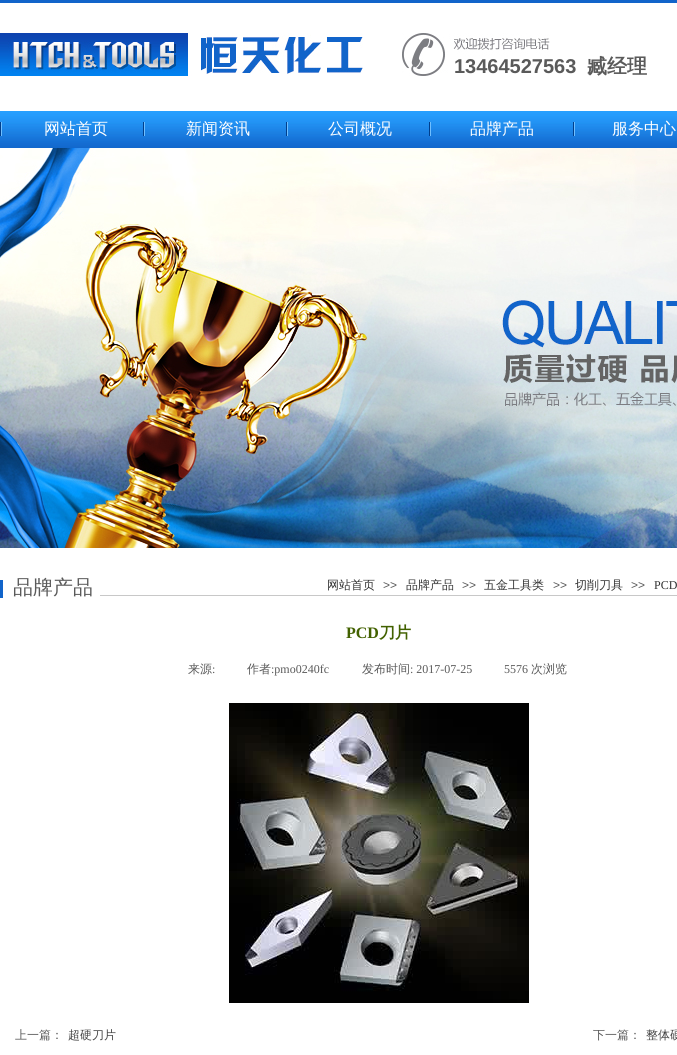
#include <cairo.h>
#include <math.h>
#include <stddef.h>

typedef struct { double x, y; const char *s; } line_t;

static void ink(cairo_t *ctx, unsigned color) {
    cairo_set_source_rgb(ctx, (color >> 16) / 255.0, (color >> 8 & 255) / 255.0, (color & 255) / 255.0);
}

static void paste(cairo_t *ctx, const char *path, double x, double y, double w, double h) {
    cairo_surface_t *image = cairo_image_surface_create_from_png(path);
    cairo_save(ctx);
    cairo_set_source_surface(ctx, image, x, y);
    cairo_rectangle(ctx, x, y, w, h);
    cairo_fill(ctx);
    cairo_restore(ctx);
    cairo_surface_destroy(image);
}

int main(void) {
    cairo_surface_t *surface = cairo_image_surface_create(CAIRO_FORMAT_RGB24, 677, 1055);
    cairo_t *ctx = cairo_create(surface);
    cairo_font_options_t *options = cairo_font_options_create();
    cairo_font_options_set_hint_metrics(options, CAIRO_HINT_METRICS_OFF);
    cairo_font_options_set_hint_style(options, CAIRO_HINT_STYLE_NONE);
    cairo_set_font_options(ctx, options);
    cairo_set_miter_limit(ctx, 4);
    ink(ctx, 0xFFFFFF);
    cairo_paint(ctx);
    paste(ctx, "media/1.png", 0, 0, 677, 148);
    paste(ctx, "media/2.png", 0, 33, 363, 43);
    paste(ctx, "media/3.png", 402, 33, 148, 43);
    cairo_select_font_face(ctx, "Liberation Sans", CAIRO_FONT_SLANT_NORMAL, CAIRO_FONT_WEIGHT_BOLD);
    cairo_set_font_size(ctx, 20);
    ink(ctx, 0x5A5A5A);
    cairo_move_to(ctx, 454, 73);
    cairo_show_text(ctx, "13464527563");
    cairo_select_font_face(ctx, "WenQuanYi Zen Hei", CAIRO_FONT_SLANT_NORMAL, CAIRO_FONT_WEIGHT_BOLD);
    cairo_move_to(ctx, 587, 73);
    cairo_show_text(ctx, "臧经理");
    paste(ctx, "media/4.png", 0, 122, 575, 14);
    cairo_select_font_face(ctx, "WenQuanYi Zen Hei Medium", CAIRO_FONT_SLANT_NORMAL, CAIRO_FONT_WEIGHT_NORMAL);
    cairo_set_font_size(ctx, 16);
    ink(ctx, 0xFFFFFF);
    {
        static const line_t items[] = {
            {44, 134, "网站首页"},
            {186, 134, "新闻资讯"},
            {328, 134, "公司概况"},
            {470, 134, "品牌产品"},
            {612, 134, "服务中心"},
        };
        for (size_t i = 0; i < sizeof items / sizeof *items; i++) {
            cairo_move_to(ctx, items[i].x, items[i].y);
            cairo_show_text(ctx, items[i].s);
        }
    }
    paste(ctx, "media/5.png", 0, 148, 677, 400);
    ink(ctx, 0x1164CA);
    cairo_rectangle(ctx, 0, 580, 3, 18);
    cairo_fill(ctx);
    cairo_set_font_size(ctx, 20);
    ink(ctx, 0x5A5A5A);
    cairo_move_to(ctx, 13, 594);
    cairo_show_text(ctx, "品牌产品");
    cairo_set_font_size(ctx, 12);
    ink(ctx, 0x333333);
    cairo_move_to(ctx, 327, 589);
    cairo_show_text(ctx, "网站首页");
    cairo_select_font_face(ctx, "Liberation Sans", CAIRO_FONT_SLANT_NORMAL, CAIRO_FONT_WEIGHT_NORMAL);
    ink(ctx, 0x5A5A5A);
    cairo_move_to(ctx, 383, 589);
    cairo_show_text(ctx, ">>");
    cairo_select_font_face(ctx, "WenQuanYi Zen Hei Medium", CAIRO_FONT_SLANT_NORMAL, CAIRO_FONT_WEIGHT_NORMAL);
    ink(ctx, 0x333333);
    cairo_move_to(ctx, 406, 589);
    cairo_show_text(ctx, "品牌产品");
    cairo_select_font_face(ctx, "Liberation Sans", CAIRO_FONT_SLANT_NORMAL, CAIRO_FONT_WEIGHT_NORMAL);
    ink(ctx, 0x5A5A5A);
    cairo_move_to(ctx, 462, 589);
    cairo_show_text(ctx, ">>");
    cairo_select_font_face(ctx, "WenQuanYi Zen Hei Medium", CAIRO_FONT_SLANT_NORMAL, CAIRO_FONT_WEIGHT_NORMAL);
    ink(ctx, 0x333333);
    cairo_move_to(ctx, 484, 589);
    cairo_show_text(ctx, "五金工具类");
    cairo_select_font_face(ctx, "Liberation Sans", CAIRO_FONT_SLANT_NORMAL, CAIRO_FONT_WEIGHT_NORMAL);
    ink(ctx, 0x5A5A5A);
    cairo_move_to(ctx, 553, 589);
    cairo_show_text(ctx, ">>");
    cairo_select_font_face(ctx, "WenQuanYi Zen Hei Medium", CAIRO_FONT_SLANT_NORMAL, CAIRO_FONT_WEIGHT_NORMAL);
    ink(ctx, 0x333333);
    cairo_move_to(ctx, 575, 589);
    cairo_show_text(ctx, "切削刀具");
    cairo_select_font_face(ctx, "Liberation Sans", CAIRO_FONT_SLANT_NORMAL, CAIRO_FONT_WEIGHT_NORMAL);
    ink(ctx, 0x5A5A5A);
    cairo_move_to(ctx, 631, 589);
    cairo_show_text(ctx, ">>");
    cairo_select_font_face(ctx, "Liberation Serif", CAIRO_FONT_SLANT_NORMAL, CAIRO_FONT_WEIGHT_NORMAL);
    ink(ctx, 0x333333);
    cairo_move_to(ctx, 654, 589);
    cairo_show_text(ctx, "PCD");
    ink(ctx, 0xC8C8C8);
    cairo_rectangle(ctx, 100, 595, 577, 1);
    cairo_fill(ctx);
    cairo_select_font_face(ctx, "Liberation Serif", CAIRO_FONT_SLANT_NORMAL, CAIRO_FONT_WEIGHT_BOLD);
    cairo_set_font_size(ctx, 16);
    ink(ctx, 0x426100);
    cairo_move_to(ctx, 346, 638);
    cairo_show_text(ctx, "PCD");
    cairo_select_font_face(ctx, "WenQuanYi Zen Hei", CAIRO_FONT_SLANT_NORMAL, CAIRO_FONT_WEIGHT_BOLD);
    cairo_move_to(ctx, 379, 638);
    cairo_show_text(ctx, "刀片");
    cairo_select_font_face(ctx, "WenQuanYi Zen Hei Medium", CAIRO_FONT_SLANT_NORMAL, CAIRO_FONT_WEIGHT_NORMAL);
    cairo_set_font_size(ctx, 12);
    ink(ctx, 0x5A5A5A);
    cairo_move_to(ctx, 188, 673);
    cairo_show_text(ctx, "来源");
    cairo_select_font_face(ctx, "Liberation Serif", CAIRO_FONT_SLANT_NORMAL, CAIRO_FONT_WEIGHT_NORMAL);
    cairo_move_to(ctx, 212, 673);
    cairo_show_text(ctx, ":");
    cairo_select_font_face(ctx, "WenQuanYi Zen Hei Medium", CAIRO_FONT_SLANT_NORMAL, CAIRO_FONT_WEIGHT_NORMAL);
    cairo_move_to(ctx, 247, 673);
    cairo_show_text(ctx, "作者");
    cairo_select_font_face(ctx, "Liberation Serif", CAIRO_FONT_SLANT_NORMAL, CAIRO_FONT_WEIGHT_NORMAL);
    cairo_move_to(ctx, 271, 673);
    cairo_show_text(ctx, ":pmo0240fc");
    cairo_select_font_face(ctx, "WenQuanYi Zen Hei Medium", CAIRO_FONT_SLANT_NORMAL, CAIRO_FONT_WEIGHT_NORMAL);
    cairo_move_to(ctx, 362, 673);
    cairo_show_text(ctx, "发布时间");
    cairo_select_font_face(ctx, "Liberation Serif", CAIRO_FONT_SLANT_NORMAL, CAIRO_FONT_WEIGHT_NORMAL);
    cairo_move_to(ctx, 410, 673);
    cairo_show_text(ctx, ": 2017-07-25");
    cairo_move_to(ctx, 504, 673);
    cairo_show_text(ctx, "5576");
    cairo_select_font_face(ctx, "WenQuanYi Zen Hei Medium", CAIRO_FONT_SLANT_NORMAL, CAIRO_FONT_WEIGHT_NORMAL);
    cairo_move_to(ctx, 531, 673);
    cairo_show_text(ctx, "次浏览");
    paste(ctx, "media/6.png", 229, 703, 300, 300);
    cairo_move_to(ctx, 15, 1039);
    cairo_show_text(ctx, "上一篇：");
    ink(ctx, 0x444444);
    cairo_move_to(ctx, 68, 1039);
    cairo_show_text(ctx, "超硬刀片");
    ink(ctx, 0x5A5A5A);
    cairo_move_to(ctx, 593, 1039);
    cairo_show_text(ctx, "下一篇：");
    ink(ctx, 0x444444);
    cairo_move_to(ctx, 646, 1039);
    cairo_show_text(ctx, "整体硬");
    cairo_surface_write_to_png(surface, "image.png");
    cairo_font_options_destroy(options);
    cairo_destroy(ctx);
    cairo_surface_destroy(surface);
    return 0;
}
